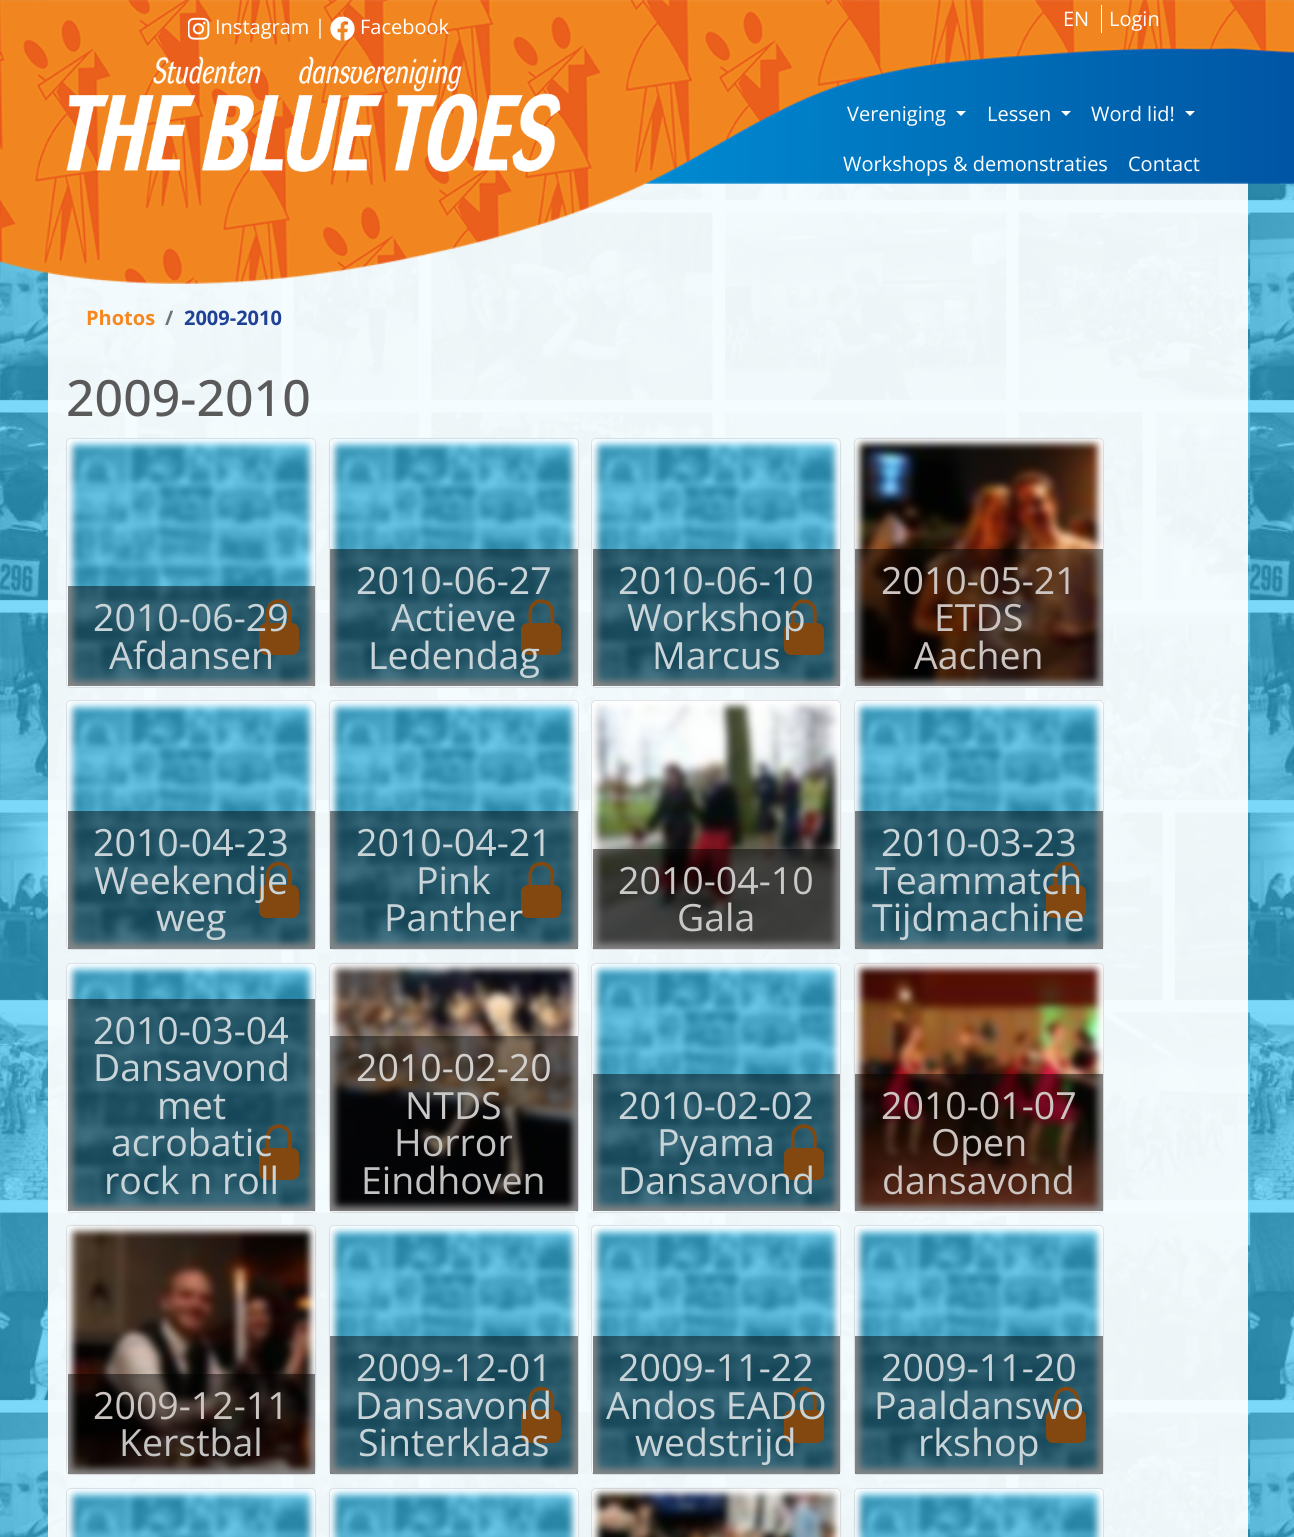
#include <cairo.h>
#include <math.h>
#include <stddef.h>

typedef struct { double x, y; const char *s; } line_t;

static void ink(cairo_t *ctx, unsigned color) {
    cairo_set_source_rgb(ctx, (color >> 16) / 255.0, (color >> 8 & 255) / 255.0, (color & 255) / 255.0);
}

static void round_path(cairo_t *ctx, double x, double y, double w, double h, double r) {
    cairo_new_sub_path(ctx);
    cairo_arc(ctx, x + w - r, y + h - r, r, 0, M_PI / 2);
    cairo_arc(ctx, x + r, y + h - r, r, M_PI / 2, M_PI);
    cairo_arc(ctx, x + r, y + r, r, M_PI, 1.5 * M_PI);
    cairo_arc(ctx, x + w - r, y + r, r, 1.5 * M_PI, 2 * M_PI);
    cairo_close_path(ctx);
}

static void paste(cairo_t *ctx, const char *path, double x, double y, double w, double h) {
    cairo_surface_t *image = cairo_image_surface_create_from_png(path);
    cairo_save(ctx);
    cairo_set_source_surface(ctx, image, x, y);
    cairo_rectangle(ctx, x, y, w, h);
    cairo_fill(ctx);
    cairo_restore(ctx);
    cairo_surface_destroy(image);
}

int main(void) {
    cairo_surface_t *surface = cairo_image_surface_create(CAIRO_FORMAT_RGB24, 1294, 1537);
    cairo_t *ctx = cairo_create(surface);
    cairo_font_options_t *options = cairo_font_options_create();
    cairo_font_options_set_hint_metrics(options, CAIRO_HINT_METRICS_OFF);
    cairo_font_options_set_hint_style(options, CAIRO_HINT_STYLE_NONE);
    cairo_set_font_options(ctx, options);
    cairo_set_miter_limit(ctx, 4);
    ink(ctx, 0xFFFFFF);
    cairo_paint(ctx);
    paste(ctx, "media/1.png", 0, 0, 1294, 1537);
    cairo_set_source_rgba(ctx, 1, 1, 1, 0.92);
    cairo_rectangle(ctx, 48, 0, 1200, 288);
    cairo_fill(ctx);
    paste(ctx, "media/2.png", 0, 0, 1294, 284);
    paste(ctx, "media/3.png", 188, 17, 22, 23);
    cairo_select_font_face(ctx, "Open Sans", CAIRO_FONT_SLANT_NORMAL, CAIRO_FONT_WEIGHT_NORMAL);
    cairo_set_font_size(ctx, 20);
    ink(ctx, 0xFFFFFF);
    cairo_move_to(ctx, 215, 34);
    cairo_show_text(ctx, "Instagram |");
    paste(ctx, "media/4.png", 330, 16, 25, 25);
    {
        static const line_t items[] = {
            {360, 34, "Facebook"},
            {1063, 26, "EN"},
            {1109, 26, "Login"},
        };
        for (size_t i = 0; i < sizeof items / sizeof *items; i++) {
            cairo_move_to(ctx, items[i].x, items[i].y);
            cairo_show_text(ctx, items[i].s);
        }
    }
    cairo_rectangle(ctx, 1101, 5, 1, 28);
    cairo_fill(ctx);
    paste(ctx, "media/5.png", 66, 56, 495, 116);
    cairo_move_to(ctx, 847, 121);
    cairo_show_text(ctx, "Vereniging");
    cairo_new_path(ctx);
    cairo_move_to(ctx, 956, 111);
    cairo_line_to(ctx, 966, 111);
    cairo_line_to(ctx, 961, 116);
    cairo_close_path(ctx);
    cairo_fill(ctx);
    cairo_move_to(ctx, 987, 121);
    cairo_show_text(ctx, "Lessen");
    cairo_new_path(ctx);
    cairo_move_to(ctx, 1061, 111);
    cairo_line_to(ctx, 1071, 111);
    cairo_line_to(ctx, 1066, 116);
    cairo_close_path(ctx);
    cairo_fill(ctx);
    cairo_move_to(ctx, 1091, 121);
    cairo_show_text(ctx, "Word lid!");
    cairo_new_path(ctx);
    cairo_move_to(ctx, 1185, 111);
    cairo_line_to(ctx, 1195, 111);
    cairo_line_to(ctx, 1190, 116);
    cairo_close_path(ctx);
    cairo_fill(ctx);
    cairo_move_to(ctx, 843, 171);
    cairo_show_text(ctx, "Workshops & demonstraties");
    cairo_move_to(ctx, 1128, 171);
    cairo_show_text(ctx, "Contact");
    cairo_set_source_rgba(ctx, 1, 1, 1, 0.92);
    cairo_rectangle(ctx, 48, 288, 1200, 1249);
    cairo_fill(ctx);
    cairo_select_font_face(ctx, "Open Sans", CAIRO_FONT_SLANT_NORMAL, CAIRO_FONT_WEIGHT_BOLD);
    ink(ctx, 0xF6881F);
    cairo_move_to(ctx, 86, 325);
    cairo_show_text(ctx, "Photos");
    ink(ctx, 0x6C757D);
    cairo_move_to(ctx, 165, 325);
    cairo_show_text(ctx, "/");
    ink(ctx, 0x1F4296);
    cairo_move_to(ctx, 184, 325);
    cairo_show_text(ctx, "2009-2010");
    cairo_select_font_face(ctx, "Open Sans Medium", CAIRO_FONT_SLANT_NORMAL, CAIRO_FONT_WEIGHT_NORMAL);
    cairo_set_font_size(ctx, 50);
    ink(ctx, 0x5A5A5A);
    cairo_move_to(ctx, 66, 416);
    cairo_show_text(ctx, "2009-2010");
    ink(ctx, 0xFFFFFF);
    round_path(ctx, 66.5, 438.5, 249, 249, 4.5);
    cairo_fill_preserve(ctx);
    ink(ctx, 0xDEE2E6);
    cairo_set_line_width(ctx, 1);
    cairo_stroke(ctx);
    paste(ctx, "media/6.png", 66, 437, 251, 251);
    ink(ctx, 0xF6881F);
    round_path(ctx, 259, 623, 40, 32, 7);
    cairo_fill(ctx);
    cairo_set_fill_rule(ctx, CAIRO_FILL_RULE_EVEN_ODD);
    cairo_new_path(ctx);
    cairo_move_to(ctx, 266, 612);
    cairo_curve_to(ctx, 266, 598, 285, 594.5, 290.5, 607);
    cairo_curve_to(ctx, 292.5, 611.5, 291.5, 618, 291.5, 623);
    cairo_line_to(ctx, 288, 623);
    cairo_line_to(ctx, 288, 612);
    cairo_curve_to(ctx, 288, 607, 284, 603, 279, 603);
    cairo_curve_to(ctx, 273.5, 603, 269.5, 607, 269.5, 612);
    cairo_line_to(ctx, 269.5, 623);
    cairo_line_to(ctx, 266, 623);
    cairo_close_path(ctx);
    cairo_fill(ctx);
    cairo_set_source_rgba(ctx, 0, 0, 0, 0.47);
    cairo_rectangle(ctx, 68, 586, 247, 100);
    cairo_fill(ctx);
    cairo_select_font_face(ctx, "Open Sans", CAIRO_FONT_SLANT_NORMAL, CAIRO_FONT_WEIGHT_NORMAL);
    cairo_set_font_size(ctx, 37.5);
    ink(ctx, 0xC9D4D8);
    cairo_move_to(ctx, 93, 631);
    cairo_show_text(ctx, "2010-06-29");
    cairo_move_to(ctx, 109, 669);
    cairo_show_text(ctx, "Afdansen");
    ink(ctx, 0xFFFFFF);
    round_path(ctx, 329.5, 438.5, 249, 249, 4.5);
    cairo_fill_preserve(ctx);
    ink(ctx, 0xDEE2E6);
    cairo_stroke(ctx);
    paste(ctx, "media/7.png", 328, 437, 251, 251);
    ink(ctx, 0xF6881F);
    round_path(ctx, 521, 623, 40, 32, 7);
    cairo_fill(ctx);
    cairo_new_path(ctx);
    cairo_move_to(ctx, 528.5, 612);
    cairo_curve_to(ctx, 528.5, 598, 547.5, 594.5, 553, 607);
    cairo_curve_to(ctx, 555, 611.5, 554, 618, 554, 623);
    cairo_line_to(ctx, 550.5, 623);
    cairo_line_to(ctx, 550.5, 612);
    cairo_curve_to(ctx, 550.5, 607, 546.5, 603, 541, 603);
    cairo_curve_to(ctx, 536, 603, 532, 607, 532, 612);
    cairo_line_to(ctx, 532, 623);
    cairo_line_to(ctx, 528.5, 623);
    cairo_close_path(ctx);
    cairo_fill(ctx);
    cairo_set_source_rgba(ctx, 0, 0, 0, 0.47);
    cairo_rectangle(ctx, 330, 549, 248, 137);
    cairo_fill(ctx);
    ink(ctx, 0xC9D4D8);
    {
        static const line_t items[] = {
            {356, 594, "2010-06-27"},
            {391, 631, "Actieve"},
            {368, 669, "Ledendag"},
        };
        for (size_t i = 0; i < sizeof items / sizeof *items; i++) {
            cairo_move_to(ctx, items[i].x, items[i].y);
            cairo_show_text(ctx, items[i].s);
        }
    }
    ink(ctx, 0xFFFFFF);
    round_path(ctx, 591.5, 438.5, 249, 249, 4.5);
    cairo_fill_preserve(ctx);
    ink(ctx, 0xDEE2E6);
    cairo_stroke(ctx);
    paste(ctx, "media/8.png", 591, 437, 251, 251);
    ink(ctx, 0xF6881F);
    round_path(ctx, 784, 623, 40, 32, 7);
    cairo_fill(ctx);
    cairo_new_path(ctx);
    cairo_move_to(ctx, 791, 612);
    cairo_curve_to(ctx, 791, 598, 810, 594.5, 815.5, 607);
    cairo_curve_to(ctx, 817.5, 611.5, 816.5, 618, 816.5, 623);
    cairo_line_to(ctx, 813, 623);
    cairo_line_to(ctx, 813, 612);
    cairo_curve_to(ctx, 813, 607, 809, 603, 804, 603);
    cairo_curve_to(ctx, 798.5, 603, 794.5, 607, 794.5, 612);
    cairo_line_to(ctx, 794.5, 623);
    cairo_line_to(ctx, 791, 623);
    cairo_close_path(ctx);
    cairo_fill(ctx);
    cairo_set_source_rgba(ctx, 0, 0, 0, 0.47);
    cairo_rectangle(ctx, 593, 549, 247, 137);
    cairo_fill(ctx);
    ink(ctx, 0xC9D4D8);
    {
        static const line_t items[] = {
            {618, 594, "2010-06-10"},
            {627, 631, "Workshop"},
            {652, 669, "Marcus"},
        };
        for (size_t i = 0; i < sizeof items / sizeof *items; i++) {
            cairo_move_to(ctx, items[i].x, items[i].y);
            cairo_show_text(ctx, items[i].s);
        }
    }
    ink(ctx, 0xFFFFFF);
    round_path(ctx, 854.5, 438.5, 249, 249, 4.5);
    cairo_fill_preserve(ctx);
    ink(ctx, 0xDEE2E6);
    cairo_stroke(ctx);
    paste(ctx, "media/9.png", 853, 437, 251, 251);
    cairo_set_source_rgba(ctx, 0, 0, 0, 0.47);
    cairo_rectangle(ctx, 855, 549, 248, 137);
    cairo_fill(ctx);
    ink(ctx, 0xCBC4C0);
    {
        static const line_t items[] = {
            {881, 594, "2010-05-21"},
            {934, 631, "ETDS"},
            {914, 669, "Aachen"},
        };
        for (size_t i = 0; i < sizeof items / sizeof *items; i++) {
            cairo_move_to(ctx, items[i].x, items[i].y);
            cairo_show_text(ctx, items[i].s);
        }
    }
    ink(ctx, 0xFFFFFF);
    round_path(ctx, 66.5, 700.5, 249, 249, 4.5);
    cairo_fill_preserve(ctx);
    ink(ctx, 0xDEE2E6);
    cairo_stroke(ctx);
    paste(ctx, "media/10.png", 66, 700, 251, 251);
    ink(ctx, 0xF6881F);
    round_path(ctx, 259, 885, 40, 33, 7);
    cairo_fill(ctx);
    cairo_new_path(ctx);
    cairo_move_to(ctx, 266, 874.5);
    cairo_curve_to(ctx, 266, 860.5, 285, 857, 290.5, 869.5);
    cairo_curve_to(ctx, 292.5, 874, 291.5, 880.5, 291.5, 885);
    cairo_line_to(ctx, 288, 885);
    cairo_line_to(ctx, 288, 874.5);
    cairo_curve_to(ctx, 288, 869.5, 284, 865.5, 279, 865.5);
    cairo_curve_to(ctx, 273.5, 865.5, 269.5, 869.5, 269.5, 874.5);
    cairo_line_to(ctx, 269.5, 885);
    cairo_line_to(ctx, 266, 885);
    cairo_close_path(ctx);
    cairo_fill(ctx);
    cairo_set_source_rgba(ctx, 0, 0, 0, 0.47);
    cairo_rectangle(ctx, 68, 811, 247, 138);
    cairo_fill(ctx);
    ink(ctx, 0xC9D4D8);
    {
        static const line_t items[] = {
            {93, 856, "2010-04-23"},
            {94, 894, "Weekendje"},
            {156, 931, "weg"},
        };
        for (size_t i = 0; i < sizeof items / sizeof *items; i++) {
            cairo_move_to(ctx, items[i].x, items[i].y);
            cairo_show_text(ctx, items[i].s);
        }
    }
    ink(ctx, 0xFFFFFF);
    round_path(ctx, 329.5, 700.5, 249, 249, 4.5);
    cairo_fill_preserve(ctx);
    ink(ctx, 0xDEE2E6);
    cairo_stroke(ctx);
    paste(ctx, "media/11.png", 328, 700, 251, 251);
    ink(ctx, 0xF6881F);
    round_path(ctx, 521, 885, 40, 33, 7);
    cairo_fill(ctx);
    cairo_new_path(ctx);
    cairo_move_to(ctx, 528.5, 874.5);
    cairo_curve_to(ctx, 528.5, 860.5, 547.5, 857, 553, 869.5);
    cairo_curve_to(ctx, 555, 874, 554, 880.5, 554, 885);
    cairo_line_to(ctx, 550.5, 885);
    cairo_line_to(ctx, 550.5, 874.5);
    cairo_curve_to(ctx, 550.5, 869.5, 546.5, 865.5, 541, 865.5);
    cairo_curve_to(ctx, 536, 865.5, 532, 869.5, 532, 874.5);
    cairo_line_to(ctx, 532, 885);
    cairo_line_to(ctx, 528.5, 885);
    cairo_close_path(ctx);
    cairo_fill(ctx);
    cairo_set_source_rgba(ctx, 0, 0, 0, 0.47);
    cairo_rectangle(ctx, 330, 811, 248, 138);
    cairo_fill(ctx);
    ink(ctx, 0xC9D4D8);
    {
        static const line_t items[] = {
            {356, 856, "2010-04-21"},
            {416, 894, "Pink"},
            {384, 931, "Panther"},
        };
        for (size_t i = 0; i < sizeof items / sizeof *items; i++) {
            cairo_move_to(ctx, items[i].x, items[i].y);
            cairo_show_text(ctx, items[i].s);
        }
    }
    ink(ctx, 0xFFFFFF);
    round_path(ctx, 591.5, 700.5, 249, 249, 4.5);
    cairo_fill_preserve(ctx);
    ink(ctx, 0xDEE2E6);
    cairo_stroke(ctx);
    paste(ctx, "media/12.png", 591, 699, 251, 251);
    cairo_set_source_rgba(ctx, 0, 0, 0, 0.47);
    cairo_rectangle(ctx, 593, 849, 247, 100);
    cairo_fill(ctx);
    ink(ctx, 0xCAC8C7);
    cairo_move_to(ctx, 618, 894);
    cairo_show_text(ctx, "2010-04-10");
    cairo_move_to(ctx, 677, 931);
    cairo_show_text(ctx, "Gala");
    ink(ctx, 0xFFFFFF);
    round_path(ctx, 854.5, 700.5, 249, 249, 4.5);
    cairo_fill_preserve(ctx);
    ink(ctx, 0xDEE2E6);
    cairo_stroke(ctx);
    paste(ctx, "media/13.png", 853, 700, 251, 251);
    ink(ctx, 0xF6881F);
    round_path(ctx, 1046, 885, 40, 33, 7);
    cairo_fill(ctx);
    cairo_new_path(ctx);
    cairo_move_to(ctx, 1053.5, 874.5);
    cairo_curve_to(ctx, 1053.5, 860.5, 1072.5, 857, 1078, 869.5);
    cairo_curve_to(ctx, 1080, 874, 1079, 880.5, 1079, 885);
    cairo_line_to(ctx, 1075.5, 885);
    cairo_line_to(ctx, 1075.5, 874.5);
    cairo_curve_to(ctx, 1075.5, 869.5, 1071.5, 865.5, 1066, 865.5);
    cairo_curve_to(ctx, 1061, 865.5, 1057, 869.5, 1057, 874.5);
    cairo_line_to(ctx, 1057, 885);
    cairo_line_to(ctx, 1053.5, 885);
    cairo_close_path(ctx);
    cairo_fill(ctx);
    cairo_set_source_rgba(ctx, 0, 0, 0, 0.47);
    cairo_rectangle(ctx, 855, 811, 248, 138);
    cairo_fill(ctx);
    ink(ctx, 0xC9D4D8);
    {
        static const line_t items[] = {
            {881, 856, "2010-03-23"},
            {875, 894, "Teammatch"},
            {872, 931, "Tijdmachine"},
        };
        for (size_t i = 0; i < sizeof items / sizeof *items; i++) {
            cairo_move_to(ctx, items[i].x, items[i].y);
            cairo_show_text(ctx, items[i].s);
        }
    }
    ink(ctx, 0xFFFFFF);
    round_path(ctx, 66.5, 963.5, 249, 249, 4.5);
    cairo_fill_preserve(ctx);
    ink(ctx, 0xDEE2E6);
    cairo_stroke(ctx);
    paste(ctx, "media/14.png", 66, 962, 251, 251);
    ink(ctx, 0xF6881F);
    round_path(ctx, 259, 1148, 40, 32, 7);
    cairo_fill(ctx);
    cairo_new_path(ctx);
    cairo_move_to(ctx, 266, 1137);
    cairo_curve_to(ctx, 266, 1123, 285, 1119.5, 290.5, 1132);
    cairo_curve_to(ctx, 292.5, 1136.5, 291.5, 1143, 291.5, 1148);
    cairo_line_to(ctx, 288, 1148);
    cairo_line_to(ctx, 288, 1137);
    cairo_curve_to(ctx, 288, 1132, 284, 1128, 279, 1128);
    cairo_curve_to(ctx, 273.5, 1128, 269.5, 1132, 269.5, 1137);
    cairo_line_to(ctx, 269.5, 1148);
    cairo_line_to(ctx, 266, 1148);
    cairo_close_path(ctx);
    cairo_fill(ctx);
    cairo_set_source_rgba(ctx, 0, 0, 0, 0.47);
    cairo_rectangle(ctx, 68, 999, 247, 212);
    cairo_fill(ctx);
    ink(ctx, 0xC9D4D8);
    {
        static const line_t items[] = {
            {93, 1044, "2010-03-04"},
            {93, 1081, "Dansavond"},
            {157, 1119, "met"},
            {111, 1156, "acrobatic"},
            {104, 1194, "rock n roll"},
        };
        for (size_t i = 0; i < sizeof items / sizeof *items; i++) {
            cairo_move_to(ctx, items[i].x, items[i].y);
            cairo_show_text(ctx, items[i].s);
        }
    }
    ink(ctx, 0xFFFFFF);
    round_path(ctx, 329.5, 963.5, 249, 249, 4.5);
    cairo_fill_preserve(ctx);
    ink(ctx, 0xDEE2E6);
    cairo_stroke(ctx);
    paste(ctx, "media/15.png", 328, 962, 251, 251);
    cairo_set_source_rgba(ctx, 0, 0, 0, 0.47);
    cairo_rectangle(ctx, 330, 1036, 248, 175);
    cairo_fill(ctx);
    ink(ctx, 0xD1CECB);
    cairo_move_to(ctx, 356, 1081);
    cairo_show_text(ctx, "2010-02-20");
    ink(ctx, 0xCAC8C7);
    cairo_move_to(ctx, 405, 1119);
    cairo_show_text(ctx, "NTDS");
    ink(ctx, 0xC2C2C1);
    cairo_move_to(ctx, 394, 1156);
    cairo_show_text(ctx, "Horror");
    cairo_move_to(ctx, 361, 1194);
    cairo_show_text(ctx, "Eindhoven");
    ink(ctx, 0xFFFFFF);
    round_path(ctx, 591.5, 963.5, 249, 249, 4.5);
    cairo_fill_preserve(ctx);
    ink(ctx, 0xDEE2E6);
    cairo_stroke(ctx);
    paste(ctx, "media/16.png", 591, 962, 251, 251);
    ink(ctx, 0xF6881F);
    round_path(ctx, 784, 1148, 40, 32, 7);
    cairo_fill(ctx);
    cairo_new_path(ctx);
    cairo_move_to(ctx, 791, 1137);
    cairo_curve_to(ctx, 791, 1123, 810, 1119.5, 815.5, 1132);
    cairo_curve_to(ctx, 817.5, 1136.5, 816.5, 1143, 816.5, 1148);
    cairo_line_to(ctx, 813, 1148);
    cairo_line_to(ctx, 813, 1137);
    cairo_curve_to(ctx, 813, 1132, 809, 1128, 804, 1128);
    cairo_curve_to(ctx, 798.5, 1128, 794.5, 1132, 794.5, 1137);
    cairo_line_to(ctx, 794.5, 1148);
    cairo_line_to(ctx, 791, 1148);
    cairo_close_path(ctx);
    cairo_fill(ctx);
    cairo_set_source_rgba(ctx, 0, 0, 0, 0.47);
    cairo_rectangle(ctx, 593, 1074, 247, 137);
    cairo_fill(ctx);
    ink(ctx, 0xC9D4D8);
    {
        static const line_t items[] = {
            {618, 1119, "2010-02-02"},
            {657, 1156, "Pyama"},
            {618, 1194, "Dansavond"},
        };
        for (size_t i = 0; i < sizeof items / sizeof *items; i++) {
            cairo_move_to(ctx, items[i].x, items[i].y);
            cairo_show_text(ctx, items[i].s);
        }
    }
    ink(ctx, 0xFFFFFF);
    round_path(ctx, 854.5, 963.5, 249, 249, 4.5);
    cairo_fill_preserve(ctx);
    ink(ctx, 0xDEE2E6);
    cairo_stroke(ctx);
    paste(ctx, "media/17.png", 853, 962, 251, 251);
    cairo_set_source_rgba(ctx, 0, 0, 0, 0.47);
    cairo_rectangle(ctx, 855, 1074, 248, 137);
    cairo_fill(ctx);
    ink(ctx, 0xCBC4C0);
    {
        static const line_t items[] = {
            {881, 1119, "2010-01-07"},
            {931, 1156, "Open"},
            {882, 1194, "dansavond"},
        };
        for (size_t i = 0; i < sizeof items / sizeof *items; i++) {
            cairo_move_to(ctx, items[i].x, items[i].y);
            cairo_show_text(ctx, items[i].s);
        }
    }
    ink(ctx, 0xFFFFFF);
    round_path(ctx, 66.5, 1225.5, 249, 249, 4.5);
    cairo_fill_preserve(ctx);
    ink(ctx, 0xDEE2E6);
    cairo_stroke(ctx);
    paste(ctx, "media/18.png", 66, 1224, 251, 252);
    cairo_set_source_rgba(ctx, 0, 0, 0, 0.47);
    cairo_rectangle(ctx, 68, 1374, 247, 100);
    cairo_fill(ctx);
    ink(ctx, 0xCBC4C0);
    cairo_move_to(ctx, 93, 1419);
    cairo_show_text(ctx, "2009-12-11");
    ink(ctx, 0xC2C2C1);
    cairo_move_to(ctx, 119, 1456);
    cairo_show_text(ctx, "Kerstbal");
    ink(ctx, 0xFFFFFF);
    round_path(ctx, 329.5, 1225.5, 249, 249, 4.5);
    cairo_fill_preserve(ctx);
    ink(ctx, 0xDEE2E6);
    cairo_stroke(ctx);
    paste(ctx, "media/19.png", 328, 1225, 251, 251);
    ink(ctx, 0xF6881F);
    round_path(ctx, 521, 1410, 40, 33, 7);
    cairo_fill(ctx);
    cairo_new_path(ctx);
    cairo_move_to(ctx, 528.5, 1399.5);
    cairo_curve_to(ctx, 528.5, 1385.5, 547.5, 1382, 553, 1394.5);
    cairo_curve_to(ctx, 555, 1399, 554, 1405.5, 554, 1410);
    cairo_line_to(ctx, 550.5, 1410);
    cairo_line_to(ctx, 550.5, 1399.5);
    cairo_curve_to(ctx, 550.5, 1394.5, 546.5, 1390.5, 541, 1390.5);
    cairo_curve_to(ctx, 536, 1390.5, 532, 1394.5, 532, 1399.5);
    cairo_line_to(ctx, 532, 1410);
    cairo_line_to(ctx, 528.5, 1410);
    cairo_close_path(ctx);
    cairo_fill(ctx);
    cairo_set_source_rgba(ctx, 0, 0, 0, 0.47);
    cairo_rectangle(ctx, 330, 1336, 248, 138);
    cairo_fill(ctx);
    ink(ctx, 0xC9D4D8);
    {
        static const line_t items[] = {
            {356, 1381, "2009-12-01"},
            {355, 1419, "Dansavond"},
            {358, 1456, "Sinterklaas"},
        };
        for (size_t i = 0; i < sizeof items / sizeof *items; i++) {
            cairo_move_to(ctx, items[i].x, items[i].y);
            cairo_show_text(ctx, items[i].s);
        }
    }
    ink(ctx, 0xFFFFFF);
    round_path(ctx, 591.5, 1225.5, 249, 249, 4.5);
    cairo_fill_preserve(ctx);
    ink(ctx, 0xDEE2E6);
    cairo_stroke(ctx);
    paste(ctx, "media/20.png", 591, 1225, 251, 251);
    ink(ctx, 0xF6881F);
    round_path(ctx, 784, 1410, 40, 33, 7);
    cairo_fill(ctx);
    cairo_new_path(ctx);
    cairo_move_to(ctx, 791, 1399.5);
    cairo_curve_to(ctx, 791, 1385.5, 810, 1382, 815.5, 1394.5);
    cairo_curve_to(ctx, 817.5, 1399, 816.5, 1405.5, 816.5, 1410);
    cairo_line_to(ctx, 813, 1410);
    cairo_line_to(ctx, 813, 1399.5);
    cairo_curve_to(ctx, 813, 1394.5, 809, 1390.5, 804, 1390.5);
    cairo_curve_to(ctx, 798.5, 1390.5, 794.5, 1394.5, 794.5, 1399.5);
    cairo_line_to(ctx, 794.5, 1410);
    cairo_line_to(ctx, 791, 1410);
    cairo_close_path(ctx);
    cairo_fill(ctx);
    cairo_set_source_rgba(ctx, 0, 0, 0, 0.47);
    cairo_rectangle(ctx, 593, 1336, 247, 138);
    cairo_fill(ctx);
    ink(ctx, 0xC9D4D8);
    {
        static const line_t items[] = {
            {618, 1381, "2009-11-22"},
            {606, 1419, "Andos EADO"},
            {635, 1456, "wedstrijd"},
        };
        for (size_t i = 0; i < sizeof items / sizeof *items; i++) {
            cairo_move_to(ctx, items[i].x, items[i].y);
            cairo_show_text(ctx, items[i].s);
        }
    }
    ink(ctx, 0xFFFFFF);
    round_path(ctx, 854.5, 1225.5, 249, 249, 4.5);
    cairo_fill_preserve(ctx);
    ink(ctx, 0xDEE2E6);
    cairo_stroke(ctx);
    paste(ctx, "media/21.png", 853, 1225, 251, 251);
    ink(ctx, 0xF6881F);
    round_path(ctx, 1046, 1410, 40, 33, 7);
    cairo_fill(ctx);
    cairo_new_path(ctx);
    cairo_move_to(ctx, 1053.5, 1399.5);
    cairo_curve_to(ctx, 1053.5, 1385.5, 1072.5, 1382, 1078, 1394.5);
    cairo_curve_to(ctx, 1080, 1399, 1079, 1405.5, 1079, 1410);
    cairo_line_to(ctx, 1075.5, 1410);
    cairo_line_to(ctx, 1075.5, 1399.5);
    cairo_curve_to(ctx, 1075.5, 1394.5, 1071.5, 1390.5, 1066, 1390.5);
    cairo_curve_to(ctx, 1061, 1390.5, 1057, 1394.5, 1057, 1399.5);
    cairo_line_to(ctx, 1057, 1410);
    cairo_line_to(ctx, 1053.5, 1410);
    cairo_close_path(ctx);
    cairo_fill(ctx);
    cairo_set_source_rgba(ctx, 0, 0, 0, 0.47);
    cairo_rectangle(ctx, 855, 1336, 248, 138);
    cairo_fill(ctx);
    ink(ctx, 0xC9D4D8);
    {
        static const line_t items[] = {
            {881, 1381, "2009-11-20"},
            {874, 1419, "Paaldanswo"},
            {918, 1456, "rkshop"},
        };
        for (size_t i = 0; i < sizeof items / sizeof *items; i++) {
            cairo_move_to(ctx, items[i].x, items[i].y);
            cairo_show_text(ctx, items[i].s);
        }
    }
    ink(ctx, 0xFFFFFF);
    round_path(ctx, 66.5, 1488.5, 249, 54, 4.5);
    cairo_fill_preserve(ctx);
    ink(ctx, 0xDEE2E6);
    cairo_stroke(ctx);
    paste(ctx, "media/22.png", 66, 1487, 251, 50);
    ink(ctx, 0xFFFFFF);
    round_path(ctx, 329.5, 1488.5, 249, 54, 4.5);
    cairo_fill_preserve(ctx);
    ink(ctx, 0xDEE2E6);
    cairo_stroke(ctx);
    paste(ctx, "media/23.png", 328, 1487, 251, 50);
    ink(ctx, 0xFFFFFF);
    round_path(ctx, 591.5, 1488.5, 249, 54, 4.5);
    cairo_fill_preserve(ctx);
    ink(ctx, 0xDEE2E6);
    cairo_stroke(ctx);
    paste(ctx, "media/24.png", 591, 1487, 251, 50);
    ink(ctx, 0xFFFFFF);
    round_path(ctx, 854.5, 1488.5, 249, 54, 4.5);
    cairo_fill_preserve(ctx);
    ink(ctx, 0xDEE2E6);
    cairo_stroke(ctx);
    paste(ctx, "media/25.png", 853, 1487, 251, 50);
    cairo_surface_write_to_png(surface, "image.png");
    cairo_font_options_destroy(options);
    cairo_destroy(ctx);
    cairo_surface_destroy(surface);
    return 0;
}
